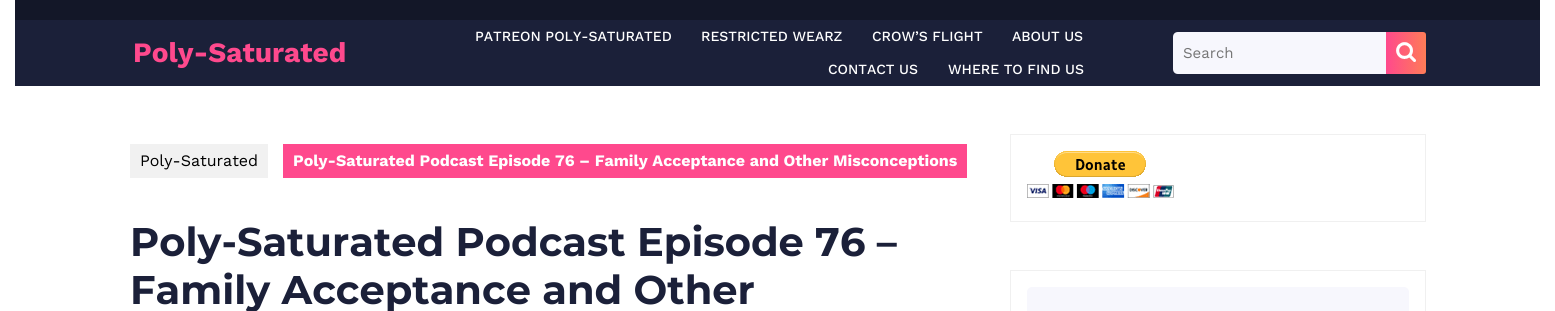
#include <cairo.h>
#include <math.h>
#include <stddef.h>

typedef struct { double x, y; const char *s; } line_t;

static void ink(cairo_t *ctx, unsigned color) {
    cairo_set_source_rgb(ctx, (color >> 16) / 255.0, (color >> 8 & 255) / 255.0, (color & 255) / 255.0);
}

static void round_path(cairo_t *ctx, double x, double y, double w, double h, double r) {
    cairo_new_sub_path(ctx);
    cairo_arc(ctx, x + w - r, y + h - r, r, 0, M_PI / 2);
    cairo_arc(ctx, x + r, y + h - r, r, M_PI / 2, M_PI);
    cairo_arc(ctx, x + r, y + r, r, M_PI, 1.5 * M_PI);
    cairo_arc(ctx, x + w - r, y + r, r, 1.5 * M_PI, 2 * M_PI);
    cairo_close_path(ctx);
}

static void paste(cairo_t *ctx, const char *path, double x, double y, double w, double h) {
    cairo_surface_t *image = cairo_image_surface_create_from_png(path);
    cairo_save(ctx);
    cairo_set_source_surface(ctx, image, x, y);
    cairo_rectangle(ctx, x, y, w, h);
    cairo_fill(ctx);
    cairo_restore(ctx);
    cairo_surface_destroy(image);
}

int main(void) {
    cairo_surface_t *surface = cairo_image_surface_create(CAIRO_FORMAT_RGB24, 1555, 311);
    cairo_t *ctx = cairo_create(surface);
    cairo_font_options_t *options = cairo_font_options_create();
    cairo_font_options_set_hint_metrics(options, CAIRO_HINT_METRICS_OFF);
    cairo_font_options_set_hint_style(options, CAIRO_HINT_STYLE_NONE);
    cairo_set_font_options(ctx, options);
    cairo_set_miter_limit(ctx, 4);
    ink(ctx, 0xFFFFFF);
    cairo_paint(ctx);
    ink(ctx, 0x131728);
    cairo_rectangle(ctx, 15, 0, 1525, 20);
    cairo_fill(ctx);
    ink(ctx, 0x1B2039);
    cairo_rectangle(ctx, 15, 20, 1525, 66);
    cairo_fill(ctx);
    cairo_select_font_face(ctx, "Work Sans", CAIRO_FONT_SLANT_NORMAL, CAIRO_FONT_WEIGHT_BOLD);
    cairo_set_font_size(ctx, 28);
    ink(ctx, 0xFF498D);
    cairo_move_to(ctx, 133, 62);
    cairo_show_text(ctx, "Poly-Saturated");
    cairo_select_font_face(ctx, "Work Sans Medium", CAIRO_FONT_SLANT_NORMAL, CAIRO_FONT_WEIGHT_NORMAL);
    cairo_set_font_size(ctx, 14);
    ink(ctx, 0xFFFFFF);
    {
        static const line_t items[] = {
            {475, 41, "PATREON POLY-SATURATED"},
            {701, 41, "RESTRICTED WEARZ"},
            {872, 41, "CROW’S FLIGHT"},
            {1012, 41, "ABOUT US"},
            {828, 74, "CONTACT US"},
            {948, 74, "WHERE TO FIND US"},
        };
        for (size_t i = 0; i < sizeof items / sizeof *items; i++) {
            cairo_move_to(ctx, items[i].x, items[i].y);
            cairo_show_text(ctx, items[i].s);
        }
    }
    ink(ctx, 0xF7F7FD);
    cairo_new_path(ctx);
    cairo_move_to(ctx, 1178, 32);
    cairo_line_to(ctx, 1386, 32);
    cairo_line_to(ctx, 1386, 74);
    cairo_line_to(ctx, 1178, 74);
    cairo_curve_to(ctx, 1175, 74, 1173, 72, 1173, 69);
    cairo_line_to(ctx, 1173, 37);
    cairo_curve_to(ctx, 1173, 34, 1175, 32, 1178, 32);
    cairo_close_path(ctx);
    cairo_fill(ctx);
    cairo_select_font_face(ctx, "Work Sans", CAIRO_FONT_SLANT_NORMAL, CAIRO_FONT_WEIGHT_NORMAL);
    cairo_set_font_size(ctx, 15);
    ink(ctx, 0x757575);
    cairo_move_to(ctx, 1183, 58);
    cairo_show_text(ctx, "Search");
    paste(ctx, "media/1.png", 1386, 32, 40, 42);
    ink(ctx, 0xF1F1F1);
    cairo_rectangle(ctx, 130, 144, 138, 34);
    cairo_fill(ctx);
    cairo_set_font_size(ctx, 16);
    ink(ctx, 0x000000);
    cairo_move_to(ctx, 140, 166);
    cairo_show_text(ctx, "Poly-Saturated");
    ink(ctx, 0xFF498D);
    cairo_rectangle(ctx, 283, 144, 684, 34);
    cairo_fill(ctx);
    cairo_select_font_face(ctx, "Work Sans", CAIRO_FONT_SLANT_NORMAL, CAIRO_FONT_WEIGHT_BOLD);
    ink(ctx, 0xFFFFFF);
    cairo_move_to(ctx, 293, 166);
    cairo_show_text(ctx, "Poly-Saturated Podcast Episode 76 – Family Acceptance and Other Misconceptions");
    cairo_select_font_face(ctx, "Montserrat", CAIRO_FONT_SLANT_NORMAL, CAIRO_FONT_WEIGHT_BOLD);
    cairo_set_font_size(ctx, 40);
    ink(ctx, 0x1B2039);
    cairo_move_to(ctx, 130, 256);
    cairo_show_text(ctx, "Poly-Saturated Podcast Episode 76 –");
    cairo_move_to(ctx, 130, 304);
    cairo_show_text(ctx, "Family Acceptance and Other");
    cairo_rectangle(ctx, 1010.5, 134.5, 415, 87);
    ink(ctx, 0xF0F0F0);
    cairo_set_line_width(ctx, 1);
    cairo_stroke(ctx);
    paste(ctx, "media/2.png", 1027, 151, 147, 47);
    cairo_rectangle(ctx, 1010.5, 270.5, 415, 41);
    cairo_stroke(ctx);
    ink(ctx, 0xF7F7FD);
    round_path(ctx, 1027, 287, 382, 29, 5);
    cairo_fill(ctx);
    cairo_surface_write_to_png(surface, "image.png");
    cairo_font_options_destroy(options);
    cairo_destroy(ctx);
    cairo_surface_destroy(surface);
    return 0;
}
